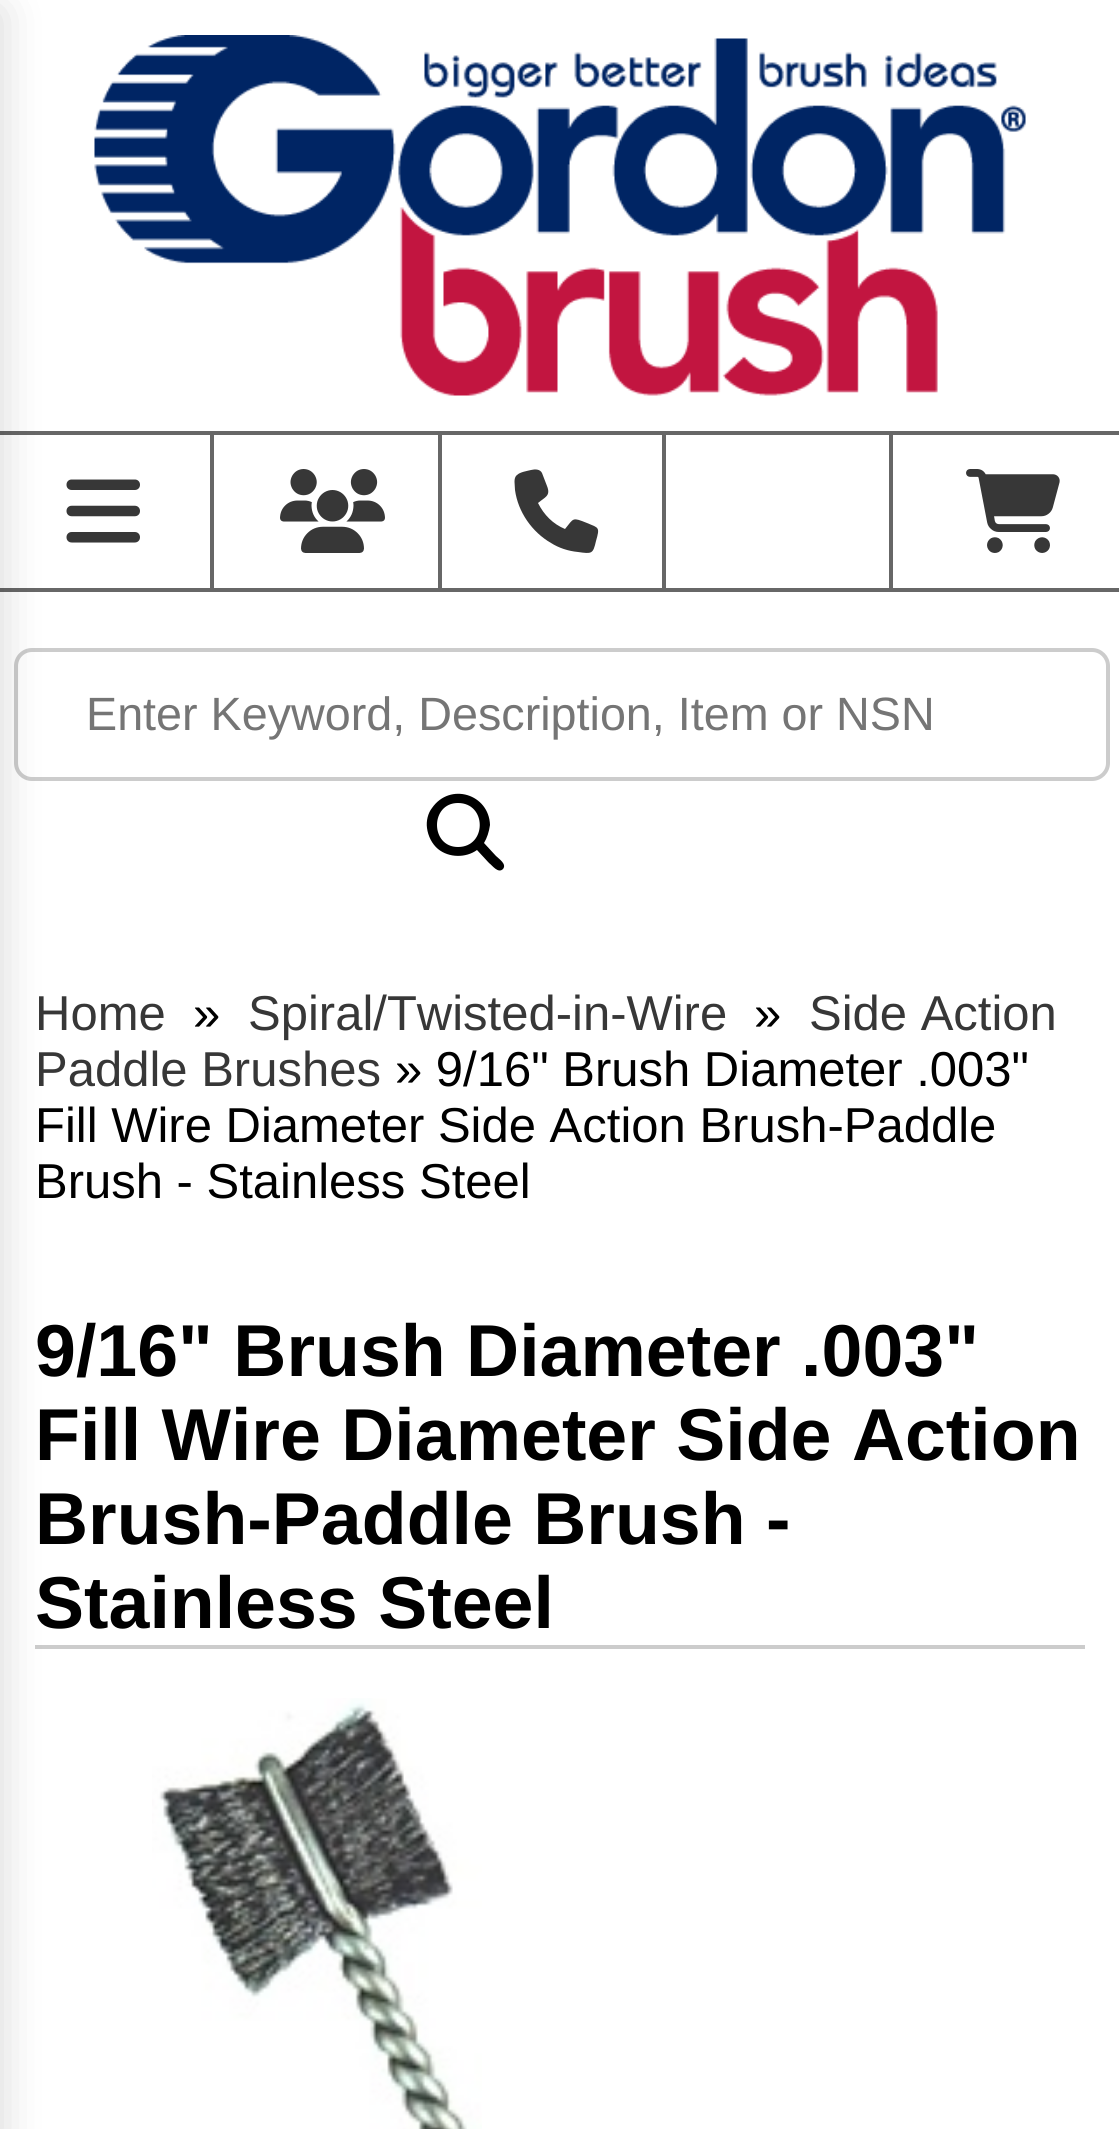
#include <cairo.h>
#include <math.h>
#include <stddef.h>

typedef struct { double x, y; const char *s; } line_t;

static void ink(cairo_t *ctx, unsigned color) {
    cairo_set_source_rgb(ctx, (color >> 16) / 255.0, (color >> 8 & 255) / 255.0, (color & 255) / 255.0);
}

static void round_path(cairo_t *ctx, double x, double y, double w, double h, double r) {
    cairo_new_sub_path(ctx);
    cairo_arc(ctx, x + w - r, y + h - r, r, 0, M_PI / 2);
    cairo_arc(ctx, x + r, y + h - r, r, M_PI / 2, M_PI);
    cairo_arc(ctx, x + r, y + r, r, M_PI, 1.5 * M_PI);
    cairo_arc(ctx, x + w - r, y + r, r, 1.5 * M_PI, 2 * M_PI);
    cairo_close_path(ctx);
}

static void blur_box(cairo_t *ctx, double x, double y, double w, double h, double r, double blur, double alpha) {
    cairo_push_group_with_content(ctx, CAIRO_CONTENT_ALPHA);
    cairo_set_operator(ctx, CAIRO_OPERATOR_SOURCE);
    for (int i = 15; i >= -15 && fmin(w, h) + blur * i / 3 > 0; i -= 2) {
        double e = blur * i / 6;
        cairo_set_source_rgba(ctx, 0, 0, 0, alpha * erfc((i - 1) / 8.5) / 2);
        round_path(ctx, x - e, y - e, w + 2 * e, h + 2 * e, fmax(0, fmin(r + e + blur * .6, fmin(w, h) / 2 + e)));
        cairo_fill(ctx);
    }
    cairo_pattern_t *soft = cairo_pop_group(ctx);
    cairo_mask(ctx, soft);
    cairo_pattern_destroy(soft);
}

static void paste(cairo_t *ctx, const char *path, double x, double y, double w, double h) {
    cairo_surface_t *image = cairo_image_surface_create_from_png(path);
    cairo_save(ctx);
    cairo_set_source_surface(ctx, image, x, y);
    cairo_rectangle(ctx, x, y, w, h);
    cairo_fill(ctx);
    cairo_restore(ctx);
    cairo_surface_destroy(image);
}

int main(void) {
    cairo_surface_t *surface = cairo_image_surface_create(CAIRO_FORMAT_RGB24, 1119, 2129);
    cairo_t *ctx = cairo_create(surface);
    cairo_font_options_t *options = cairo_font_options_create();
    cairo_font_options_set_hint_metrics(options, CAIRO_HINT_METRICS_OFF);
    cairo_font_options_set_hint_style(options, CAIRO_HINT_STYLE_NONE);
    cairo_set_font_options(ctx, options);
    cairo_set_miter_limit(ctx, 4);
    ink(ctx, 0xFFFFFF);
    cairo_paint(ctx);
    ink(ctx, 0x676767);
    cairo_rectangle(ctx, 0, 588, 1119, 4);
    cairo_fill(ctx);
    cairo_rectangle(ctx, 0, 431, 1119, 4);
    cairo_fill(ctx);
    paste(ctx, "media/2.png", 66, 479, 74, 64);
    round_path(ctx, 16, 650, 1092, 129, 16);
    ink(ctx, 0xCCCCCC);
    cairo_set_line_width(ctx, 4);
    cairo_stroke(ctx);
    cairo_rectangle(ctx, 35, 1645, 1050, 4);
    cairo_fill(ctx);
    ink(ctx, 0x000000);
    blur_box(ctx, -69, 11, 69, 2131, 0, 23, 0.16);
    paste(ctx, "media/1.png", 94, 35, 932, 361);
    ink(ctx, 0x676767);
    cairo_rectangle(ctx, 210, 434, 4, 154);
    cairo_fill(ctx);
    cairo_rectangle(ctx, 438, 434, 4, 154);
    cairo_fill(ctx);
    paste(ctx, "media/3.png", 280, 469, 105, 84);
    cairo_rectangle(ctx, 662, 434, 4, 154);
    cairo_fill(ctx);
    ink(ctx, 0x373737);
    cairo_new_path(ctx);
    cairo_move_to(ctx, 542, 473);
    cairo_curve_to(ctx, 540, 469, 535, 469, 531, 470);
    cairo_curve_to(ctx, 527, 471, 520, 472, 517, 475);
    cairo_curve_to(ctx, 513, 478, 515, 485, 515, 490);
    cairo_curve_to(ctx, 518, 512, 532, 532, 551, 543);
    cairo_curve_to(ctx, 559, 548, 568, 551, 578, 552);
    cairo_curve_to(ctx, 592, 554, 593, 554, 596, 541);
    cairo_curve_to(ctx, 600, 527, 599, 528, 587, 523);
    cairo_curve_to(ctx, 572, 517, 574, 518, 565, 529);
    cairo_curve_to(ctx, 553, 524, 544, 515, 538, 503);
    cairo_curve_to(ctx, 545, 497, 551, 496, 547, 486);
    cairo_close_path(ctx);
    cairo_fill(ctx);
    ink(ctx, 0x676767);
    cairo_rectangle(ctx, 889, 434, 4, 154);
    cairo_fill(ctx);
    paste(ctx, "media/4.png", 966, 469, 94, 84);
    cairo_select_font_face(ctx, "Liberation Sans", CAIRO_FONT_SLANT_NORMAL, CAIRO_FONT_WEIGHT_NORMAL);
    cairo_set_font_size(ctx, 46.7);
    ink(ctx, 0x757575);
    cairo_move_to(ctx, 86, 730);
    cairo_show_text(ctx, "Enter Keyword, Description, Item or NSN");
    ink(ctx, 0x000000);
    cairo_new_path(ctx);
    cairo_move_to(ctx, 490, 825);
    cairo_curve_to(ctx, 489, 832, 487, 838, 484, 843);
    cairo_line_to(ctx, 496, 856);
    cairo_curve_to(ctx, 499, 859, 507, 864, 503, 869);
    cairo_curve_to(ctx, 498, 874, 492, 865, 489, 863);
    cairo_line_to(ctx, 477, 850);
    cairo_curve_to(ctx, 466, 858, 449, 858, 438, 849);
    cairo_curve_to(ctx, 432, 844, 428, 836, 427, 828);
    cairo_curve_to(ctx, 426, 821, 428, 813, 432, 808);
    cairo_curve_to(ctx, 450, 782, 489, 794, 490, 825);
    cairo_close_path(ctx);
    cairo_move_to(ctx, 458, 847);
    cairo_curve_to(ctx, 487, 847, 487, 803, 458, 803);
    cairo_curve_to(ctx, 430, 803, 430, 847, 458, 847);
    cairo_close_path(ctx);
    cairo_fill(ctx);
    cairo_set_font_size(ctx, 49);
    ink(ctx, 0x373737);
    cairo_move_to(ctx, 35, 1030);
    cairo_show_text(ctx, "Home");
    ink(ctx, 0x000000);
    cairo_move_to(ctx, 193, 1030);
    cairo_show_text(ctx, "»");
    ink(ctx, 0x373737);
    cairo_move_to(ctx, 248, 1030);
    cairo_show_text(ctx, "Spiral/Twisted-in-Wire");
    ink(ctx, 0x000000);
    cairo_move_to(ctx, 754, 1030);
    cairo_show_text(ctx, "»");
    ink(ctx, 0x373737);
    cairo_move_to(ctx, 809, 1030);
    cairo_show_text(ctx, "Side Action");
    cairo_move_to(ctx, 35, 1086);
    cairo_show_text(ctx, "Paddle Brushes");
    ink(ctx, 0x000000);
    {
        static const line_t items[] = {
            {395, 1086, "» 9/16\" Brush Diameter .003\""},
            {35, 1142, "Fill Wire Diameter Side Action Brush-Paddle"},
            {35, 1198, "Brush - Stainless Steel"},
        };
        for (size_t i = 0; i < sizeof items / sizeof *items; i++) {
            cairo_move_to(ctx, items[i].x, items[i].y);
            cairo_show_text(ctx, items[i].s);
        }
    }
    cairo_select_font_face(ctx, "Liberation Sans", CAIRO_FONT_SLANT_NORMAL, CAIRO_FONT_WEIGHT_BOLD);
    cairo_set_font_size(ctx, 73.5);
    {
        static const line_t items[] = {
            {35, 1376, "9/16\" Brush Diameter .003\""},
            {35, 1460, "Fill Wire Diameter Side Action"},
            {35, 1544, "Brush-Paddle Brush -"},
            {35, 1628, "Stainless Steel"},
        };
        for (size_t i = 0; i < sizeof items / sizeof *items; i++) {
            cairo_move_to(ctx, items[i].x, items[i].y);
            cairo_show_text(ctx, items[i].s);
        }
    }
    paste(ctx, "media/5.png", 152, 1698, 330, 431);
    cairo_surface_write_to_png(surface, "image.png");
    cairo_font_options_destroy(options);
    cairo_destroy(ctx);
    cairo_surface_destroy(surface);
    return 0;
}
